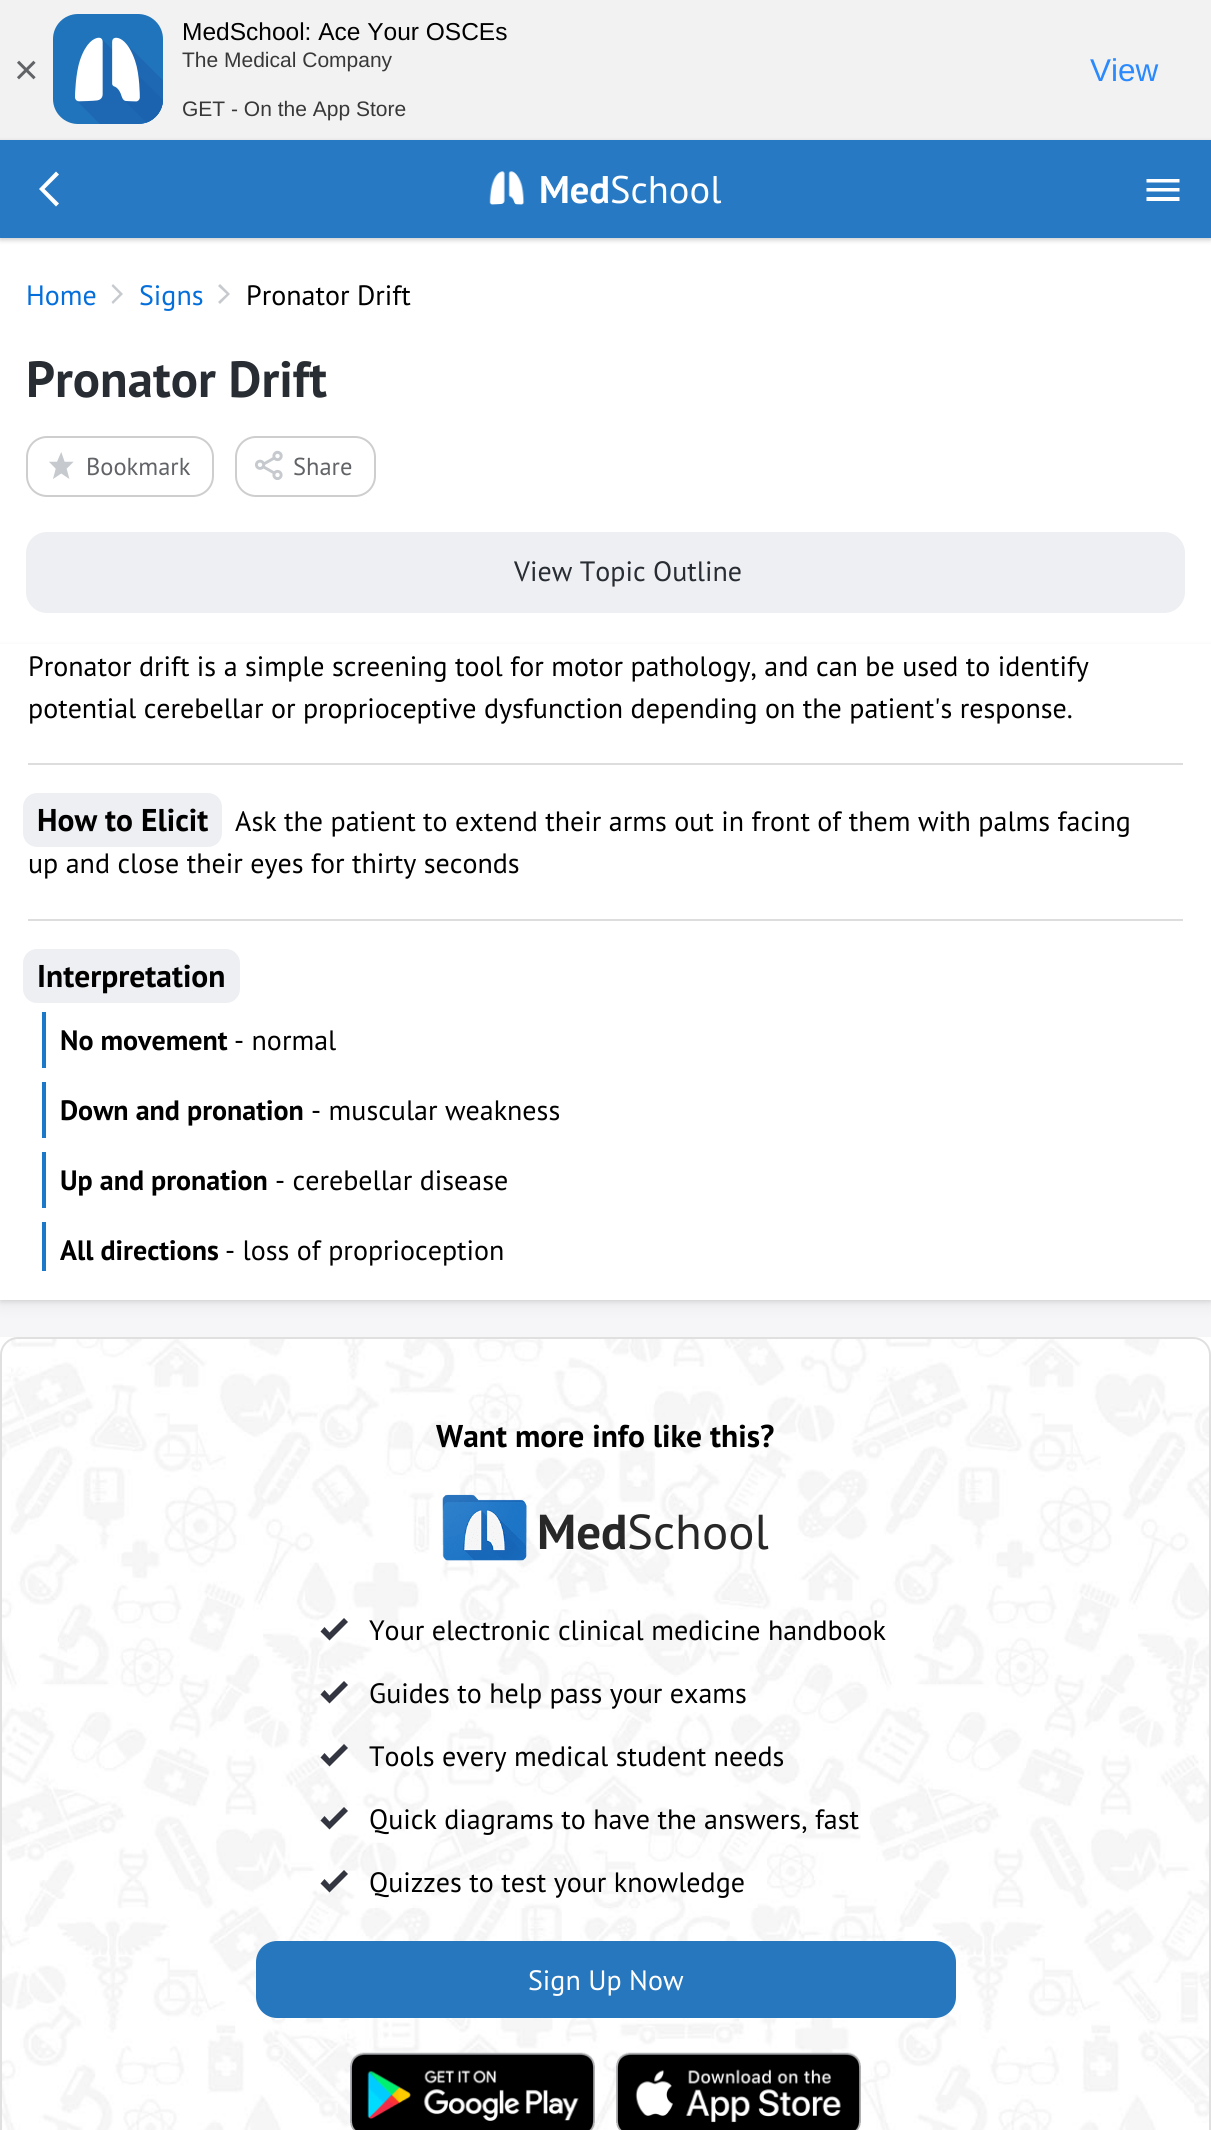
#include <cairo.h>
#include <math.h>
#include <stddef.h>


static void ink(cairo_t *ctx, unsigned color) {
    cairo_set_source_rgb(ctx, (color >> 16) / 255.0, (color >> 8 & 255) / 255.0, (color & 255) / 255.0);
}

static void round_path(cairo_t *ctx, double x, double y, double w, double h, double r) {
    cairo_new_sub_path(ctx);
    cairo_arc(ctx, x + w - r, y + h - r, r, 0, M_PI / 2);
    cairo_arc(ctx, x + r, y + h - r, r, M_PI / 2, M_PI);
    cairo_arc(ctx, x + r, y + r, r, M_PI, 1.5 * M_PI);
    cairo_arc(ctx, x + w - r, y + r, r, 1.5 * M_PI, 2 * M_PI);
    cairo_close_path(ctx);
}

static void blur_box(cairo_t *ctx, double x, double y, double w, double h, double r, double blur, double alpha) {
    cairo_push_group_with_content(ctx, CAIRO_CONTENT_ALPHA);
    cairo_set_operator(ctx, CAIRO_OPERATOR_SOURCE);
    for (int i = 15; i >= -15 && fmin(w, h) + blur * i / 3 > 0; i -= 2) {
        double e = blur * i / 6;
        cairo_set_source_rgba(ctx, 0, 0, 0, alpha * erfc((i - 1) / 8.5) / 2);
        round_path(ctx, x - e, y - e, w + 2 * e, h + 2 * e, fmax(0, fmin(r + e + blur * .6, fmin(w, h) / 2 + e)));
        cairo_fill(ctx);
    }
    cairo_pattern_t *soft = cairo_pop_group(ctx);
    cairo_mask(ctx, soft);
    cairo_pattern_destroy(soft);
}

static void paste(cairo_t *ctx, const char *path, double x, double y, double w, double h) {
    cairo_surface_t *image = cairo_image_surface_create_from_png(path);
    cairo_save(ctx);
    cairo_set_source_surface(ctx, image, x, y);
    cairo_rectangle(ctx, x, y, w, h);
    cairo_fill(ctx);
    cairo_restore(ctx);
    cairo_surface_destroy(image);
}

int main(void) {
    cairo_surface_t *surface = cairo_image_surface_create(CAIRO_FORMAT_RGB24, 1211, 2130);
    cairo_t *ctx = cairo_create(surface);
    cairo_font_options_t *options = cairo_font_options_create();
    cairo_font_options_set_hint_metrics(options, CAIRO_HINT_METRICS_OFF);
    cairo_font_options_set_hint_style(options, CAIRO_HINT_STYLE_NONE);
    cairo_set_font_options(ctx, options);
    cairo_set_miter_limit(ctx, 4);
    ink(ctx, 0xFFFFFF);
    cairo_paint(ctx);
    ink(ctx, 0xF2F2F2);
    cairo_rectangle(ctx, 0, 0, 1211, 140);
    cairo_fill(ctx);
    cairo_select_font_face(ctx, "Liberation Sans", CAIRO_FONT_SLANT_NORMAL, CAIRO_FONT_WEIGHT_NORMAL);
    cairo_set_font_size(ctx, 42);
    ink(ctx, 0x616367);
    cairo_move_to(ctx, 14, 84);
    cairo_show_text(ctx, "×");
    paste(ctx, "media/1.png", 53, 14, 110, 110);
    cairo_set_font_size(ctx, 24.5);
    ink(ctx, 0x000000);
    cairo_move_to(ctx, 182, 40);
    cairo_show_text(ctx, "MedSchool: Ace Your OSCEs");
    cairo_set_font_size(ctx, 21);
    ink(ctx, 0x383838);
    cairo_move_to(ctx, 182, 67);
    cairo_show_text(ctx, "The Medical Company");
    cairo_move_to(ctx, 182, 116);
    cairo_show_text(ctx, "GET - On the App Store");
    cairo_set_font_size(ctx, 31.5);
    ink(ctx, 0x2A89FD);
    cairo_move_to(ctx, 1090, 81);
    cairo_show_text(ctx, "View");
    ink(ctx, 0x000000);
    blur_box(ctx, 0, 142, 1211, 98, 0, 2.5, 0.2);
    ink(ctx, 0x2779C4);
    cairo_rectangle(ctx, 0, 140, 1211, 98);
    cairo_fill(ctx);
    ink(ctx, 0xFFFFFF);
    cairo_new_path(ctx);
    cairo_move_to(ctx, 56, 171.5);
    cairo_line_to(ctx, 39, 189);
    cairo_line_to(ctx, 56, 206.5);
    cairo_line_to(ctx, 59, 203.5);
    cairo_line_to(ctx, 44.5, 189);
    cairo_line_to(ctx, 59, 174.5);
    cairo_close_path(ctx);
    cairo_fill(ctx);
    paste(ctx, "media/2.png", 489, 171, 36, 34);
    cairo_select_font_face(ctx, "PT Sans", CAIRO_FONT_SLANT_NORMAL, CAIRO_FONT_WEIGHT_BOLD);
    cairo_set_font_size(ctx, 38.5);
    cairo_move_to(ctx, 539, 203);
    cairo_show_text(ctx, "Med");
    cairo_select_font_face(ctx, "PT Sans", CAIRO_FONT_SLANT_NORMAL, CAIRO_FONT_WEIGHT_NORMAL);
    cairo_move_to(ctx, 610, 203);
    cairo_show_text(ctx, "School");
    cairo_new_path(ctx);
    cairo_move_to(ctx, 1179.5, 201);
    cairo_line_to(ctx, 1146.5, 201);
    cairo_line_to(ctx, 1146.5, 197);
    cairo_line_to(ctx, 1179.5, 197);
    cairo_close_path(ctx);
    cairo_move_to(ctx, 1179.5, 191.5);
    cairo_line_to(ctx, 1146.5, 191.5);
    cairo_line_to(ctx, 1146.5, 188);
    cairo_line_to(ctx, 1179.5, 188);
    cairo_close_path(ctx);
    cairo_move_to(ctx, 1179.5, 182.5);
    cairo_line_to(ctx, 1146.5, 182.5);
    cairo_line_to(ctx, 1146.5, 179);
    cairo_line_to(ctx, 1179.5, 179);
    cairo_close_path(ctx);
    cairo_fill(ctx);
    cairo_set_font_size(ctx, 28);
    ink(ctx, 0x046FDA);
    cairo_move_to(ctx, 26, 305);
    cairo_show_text(ctx, "Home");
    ink(ctx, 0xC6CACE);
    cairo_new_path(ctx);
    cairo_move_to(ctx, 113, 304);
    cairo_line_to(ctx, 123, 294);
    cairo_line_to(ctx, 113, 284);
    cairo_line_to(ctx, 111.5, 286);
    cairo_line_to(ctx, 119.5, 294);
    cairo_line_to(ctx, 111.5, 302);
    cairo_close_path(ctx);
    cairo_fill(ctx);
    ink(ctx, 0x046FDA);
    cairo_move_to(ctx, 139, 305);
    cairo_show_text(ctx, "Signs");
    ink(ctx, 0xC6CACE);
    cairo_new_path(ctx);
    cairo_move_to(ctx, 220, 304);
    cairo_line_to(ctx, 230, 294);
    cairo_line_to(ctx, 220, 284);
    cairo_line_to(ctx, 218, 286);
    cairo_line_to(ctx, 226.5, 294);
    cairo_line_to(ctx, 218, 302);
    cairo_close_path(ctx);
    cairo_fill(ctx);
    ink(ctx, 0x000000);
    cairo_move_to(ctx, 246, 305);
    cairo_show_text(ctx, "Pronator Drift");
    cairo_select_font_face(ctx, "PT Sans", CAIRO_FONT_SLANT_NORMAL, CAIRO_FONT_WEIGHT_BOLD);
    cairo_set_font_size(ctx, 50.75);
    ink(ctx, 0x282C33);
    cairo_move_to(ctx, 26, 397);
    cairo_show_text(ctx, "Pronator Drift");
    round_path(ctx, 27, 437, 186, 59, 20);
    ink(ctx, 0xCECECE);
    cairo_stroke(ctx);
    paste(ctx, "media/3.png", 49, 452, 25, 27);
    cairo_select_font_face(ctx, "PT Sans", CAIRO_FONT_SLANT_NORMAL, CAIRO_FONT_WEIGHT_NORMAL);
    cairo_set_font_size(ctx, 24.5);
    ink(ctx, 0x616367);
    cairo_move_to(ctx, 86, 475);
    cairo_show_text(ctx, "Bookmark");
    round_path(ctx, 236, 437, 139, 59, 20);
    ink(ctx, 0xCECECE);
    cairo_stroke(ctx);
    paste(ctx, "media/4.png", 255, 450, 28, 30);
    ink(ctx, 0x616367);
    cairo_move_to(ctx, 293, 475);
    cairo_show_text(ctx, "Share");
    ink(ctx, 0xEEEFF2);
    round_path(ctx, 26, 532, 1159, 81, 21);
    cairo_fill(ctx);
    cairo_set_font_size(ctx, 28);
    ink(ctx, 0x282C33);
    cairo_move_to(ctx, 514, 581);
    cairo_show_text(ctx, "View Topic Outline");
    ink(ctx, 0xF6F6F8);
    cairo_rectangle(ctx, 0, 1300, 1211, 37);
    cairo_fill(ctx);
    ink(ctx, 0x000000);
    blur_box(ctx, 0, 646, 1211, 656, 0, 2, 0.1);
    blur_box(ctx, 0, 651, 1211, 656, 0, 7, 0.05);
    ink(ctx, 0xFFFFFF);
    cairo_rectangle(ctx, 0, 644, 1211, 656);
    cairo_fill(ctx);
    ink(ctx, 0x000000);
    cairo_move_to(ctx, 28, 676);
    cairo_show_text(ctx, "Pronator drift is a simple screening tool for motor pathology, and can be used to identify");
    cairo_move_to(ctx, 28, 718);
    cairo_show_text(ctx, "potential cerebellar or proprioceptive dysfunction depending on the patient's response.");
    ink(ctx, 0xDDDDDD);
    cairo_rectangle(ctx, 28, 763, 1155, 2);
    cairo_fill(ctx);
    ink(ctx, 0xEEEFF2);
    round_path(ctx, 23, 793, 199, 54, 14);
    cairo_fill(ctx);
    cairo_select_font_face(ctx, "PT Sans", CAIRO_FONT_SLANT_NORMAL, CAIRO_FONT_WEIGHT_BOLD);
    cairo_set_font_size(ctx, 31.5);
    ink(ctx, 0x000000);
    cairo_move_to(ctx, 37, 831);
    cairo_show_text(ctx, "How to Elicit");
    cairo_select_font_face(ctx, "PT Sans", CAIRO_FONT_SLANT_NORMAL, CAIRO_FONT_WEIGHT_NORMAL);
    cairo_set_font_size(ctx, 28);
    cairo_move_to(ctx, 235, 831);
    cairo_show_text(ctx, "Ask the patient to extend their arms out in front of them with palms facing");
    cairo_move_to(ctx, 28, 873);
    cairo_show_text(ctx, "up and close their eyes for thirty seconds");
    ink(ctx, 0xDDDDDD);
    cairo_rectangle(ctx, 28, 919, 1155, 2);
    cairo_fill(ctx);
    ink(ctx, 0xEEEFF2);
    round_path(ctx, 23, 949, 217, 54, 14);
    cairo_fill(ctx);
    cairo_select_font_face(ctx, "PT Sans", CAIRO_FONT_SLANT_NORMAL, CAIRO_FONT_WEIGHT_BOLD);
    cairo_set_font_size(ctx, 31.5);
    ink(ctx, 0x000000);
    cairo_move_to(ctx, 37, 987);
    cairo_show_text(ctx, "Interpretation");
    ink(ctx, 0x1C78C8);
    cairo_rectangle(ctx, 42, 1012, 4, 56);
    cairo_fill(ctx);
    cairo_set_font_size(ctx, 28);
    ink(ctx, 0x000000);
    cairo_move_to(ctx, 60, 1050);
    cairo_show_text(ctx, "No movement");
    cairo_select_font_face(ctx, "PT Sans", CAIRO_FONT_SLANT_NORMAL, CAIRO_FONT_WEIGHT_NORMAL);
    cairo_move_to(ctx, 234, 1050);
    cairo_show_text(ctx, "- normal");
    ink(ctx, 0x1C78C8);
    cairo_rectangle(ctx, 42, 1082, 4, 56);
    cairo_fill(ctx);
    cairo_select_font_face(ctx, "PT Sans", CAIRO_FONT_SLANT_NORMAL, CAIRO_FONT_WEIGHT_BOLD);
    ink(ctx, 0x000000);
    cairo_move_to(ctx, 60, 1120);
    cairo_show_text(ctx, "Down and pronation");
    cairo_select_font_face(ctx, "PT Sans", CAIRO_FONT_SLANT_NORMAL, CAIRO_FONT_WEIGHT_NORMAL);
    cairo_move_to(ctx, 311, 1120);
    cairo_show_text(ctx, "- muscular weakness");
    ink(ctx, 0x1C78C8);
    cairo_rectangle(ctx, 42, 1152, 4, 56);
    cairo_fill(ctx);
    cairo_select_font_face(ctx, "PT Sans", CAIRO_FONT_SLANT_NORMAL, CAIRO_FONT_WEIGHT_BOLD);
    ink(ctx, 0x000000);
    cairo_move_to(ctx, 60, 1190);
    cairo_show_text(ctx, "Up and pronation");
    cairo_select_font_face(ctx, "PT Sans", CAIRO_FONT_SLANT_NORMAL, CAIRO_FONT_WEIGHT_NORMAL);
    cairo_move_to(ctx, 275, 1190);
    cairo_show_text(ctx, "- cerebellar disease");
    ink(ctx, 0x1C78C8);
    cairo_rectangle(ctx, 42, 1222, 4, 49);
    cairo_fill(ctx);
    cairo_select_font_face(ctx, "PT Sans", CAIRO_FONT_SLANT_NORMAL, CAIRO_FONT_WEIGHT_BOLD);
    ink(ctx, 0x000000);
    cairo_move_to(ctx, 60, 1260);
    cairo_show_text(ctx, "All directions");
    cairo_select_font_face(ctx, "PT Sans", CAIRO_FONT_SLANT_NORMAL, CAIRO_FONT_WEIGHT_NORMAL);
    cairo_move_to(ctx, 225, 1260);
    cairo_show_text(ctx, "- loss of proprioception");
    paste(ctx, "media/5.png", 0, 1337, 1211, 793);
    round_path(ctx, 1, 1338, 1209, 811, 17);
    ink(ctx, 0xE0E0E0);
    cairo_stroke(ctx);
    cairo_select_font_face(ctx, "PT Sans", CAIRO_FONT_SLANT_NORMAL, CAIRO_FONT_WEIGHT_BOLD);
    cairo_set_font_size(ctx, 31.5);
    ink(ctx, 0x000000);
    cairo_move_to(ctx, 436, 1447);
    cairo_show_text(ctx, "Want more info like this?");
    paste(ctx, "media/6.png", 442, 1494, 85, 67);
    cairo_set_font_size(ctx, 49);
    ink(ctx, 0x282828);
    cairo_move_to(ctx, 537, 1549);
    cairo_show_text(ctx, "Med");
    cairo_select_font_face(ctx, "PT Sans", CAIRO_FONT_SLANT_NORMAL, CAIRO_FONT_WEIGHT_NORMAL);
    cairo_move_to(ctx, 627, 1549);
    cairo_show_text(ctx, "School");
    ink(ctx, 0x333640);
    cairo_new_path(ctx);
    cairo_move_to(ctx, 329.5, 1640.5);
    cairo_line_to(ctx, 320.5, 1631.5);
    cairo_line_to(ctx, 324.5, 1627);
    cairo_line_to(ctx, 329.5, 1632.5);
    cairo_line_to(ctx, 344, 1618);
    cairo_line_to(ctx, 348, 1622);
    cairo_close_path(ctx);
    cairo_fill(ctx);
    cairo_set_font_size(ctx, 28);
    ink(ctx, 0x000000);
    cairo_move_to(ctx, 369, 1640);
    cairo_show_text(ctx, "Your electronic clinical medicine handbook");
    ink(ctx, 0x333640);
    cairo_new_path(ctx);
    cairo_move_to(ctx, 329.5, 1703.5);
    cairo_line_to(ctx, 320.5, 1694.5);
    cairo_line_to(ctx, 324.5, 1690);
    cairo_line_to(ctx, 329.5, 1695.5);
    cairo_line_to(ctx, 344, 1681);
    cairo_line_to(ctx, 348, 1685);
    cairo_close_path(ctx);
    cairo_fill(ctx);
    ink(ctx, 0x000000);
    cairo_move_to(ctx, 369, 1703);
    cairo_show_text(ctx, "Guides to help pass your exams");
    ink(ctx, 0x333640);
    cairo_new_path(ctx);
    cairo_move_to(ctx, 329.5, 1766.5);
    cairo_line_to(ctx, 320.5, 1757.5);
    cairo_line_to(ctx, 324.5, 1753);
    cairo_line_to(ctx, 329.5, 1758.5);
    cairo_line_to(ctx, 344, 1744);
    cairo_line_to(ctx, 348, 1748);
    cairo_close_path(ctx);
    cairo_fill(ctx);
    ink(ctx, 0x000000);
    cairo_move_to(ctx, 369, 1766);
    cairo_show_text(ctx, "Tools every medical student needs");
    ink(ctx, 0x333640);
    cairo_new_path(ctx);
    cairo_move_to(ctx, 329.5, 1829.5);
    cairo_line_to(ctx, 320.5, 1820.5);
    cairo_line_to(ctx, 324.5, 1816);
    cairo_line_to(ctx, 329.5, 1821.5);
    cairo_line_to(ctx, 344, 1807);
    cairo_line_to(ctx, 348, 1811);
    cairo_close_path(ctx);
    cairo_fill(ctx);
    ink(ctx, 0x000000);
    cairo_move_to(ctx, 369, 1829);
    cairo_show_text(ctx, "Quick diagrams to have the answers, fast");
    ink(ctx, 0x333640);
    cairo_new_path(ctx);
    cairo_move_to(ctx, 329.5, 1892.5);
    cairo_line_to(ctx, 320.5, 1883.5);
    cairo_line_to(ctx, 324.5, 1879);
    cairo_line_to(ctx, 329.5, 1884.5);
    cairo_line_to(ctx, 344, 1870);
    cairo_line_to(ctx, 348, 1874);
    cairo_close_path(ctx);
    cairo_fill(ctx);
    ink(ctx, 0x000000);
    cairo_move_to(ctx, 369, 1892);
    cairo_show_text(ctx, "Quizzes to test your knowledge");
    ink(ctx, 0x2777BE);
    round_path(ctx, 256, 1941, 700, 77, 21);
    cairo_fill(ctx);
    ink(ctx, 0xFFFFFF);
    cairo_move_to(ctx, 528, 1990);
    cairo_show_text(ctx, "Sign Up Now");
    paste(ctx, "media/7.png", 350, 2052, 245, 78);
    paste(ctx, "media/8.png", 616, 2052, 245, 78);
    cairo_surface_write_to_png(surface, "image.png");
    cairo_font_options_destroy(options);
    cairo_destroy(ctx);
    cairo_surface_destroy(surface);
    return 0;
}
